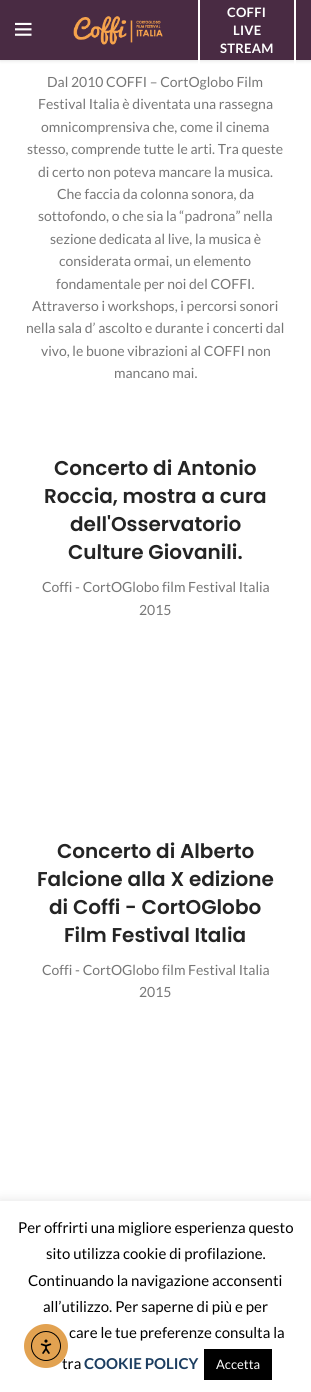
#include <cairo.h>
#include <math.h>
#include <stddef.h>

typedef struct { double x, y; const char *s; } line_t;

static void ink(cairo_t *ctx, unsigned color) {
    cairo_set_source_rgb(ctx, (color >> 16) / 255.0, (color >> 8 & 255) / 255.0, (color & 255) / 255.0);
}

static void write_spaced(cairo_t *ctx, double x, double y, const char *s, double letter, double word) {
    cairo_move_to(ctx, x, y);
    while (*s) {
        char ch[5] = {0};
        int n = 0;
        do ch[n++] = *s++; while ((*s & 0xC0) == 0x80);
        cairo_show_text(ctx, ch);
        cairo_rel_move_to(ctx, letter + word * (*ch == ' '), 0);
    }
}

static void round_path(cairo_t *ctx, double x, double y, double w, double h, double r) {
    cairo_new_sub_path(ctx);
    cairo_arc(ctx, x + w - r, y + h - r, r, 0, M_PI / 2);
    cairo_arc(ctx, x + r, y + h - r, r, M_PI / 2, M_PI);
    cairo_arc(ctx, x + r, y + r, r, M_PI, 1.5 * M_PI);
    cairo_arc(ctx, x + w - r, y + r, r, 1.5 * M_PI, 2 * M_PI);
    cairo_close_path(ctx);
}

static void blur_box(cairo_t *ctx, double x, double y, double w, double h, double r, double blur, double alpha) {
    cairo_push_group_with_content(ctx, CAIRO_CONTENT_ALPHA);
    cairo_set_operator(ctx, CAIRO_OPERATOR_SOURCE);
    for (int i = 15; i >= -15 && fmin(w, h) + blur * i / 3 > 0; i -= 2) {
        double e = blur * i / 6;
        cairo_set_source_rgba(ctx, 0, 0, 0, alpha * erfc((i - 1) / 8.5) / 2);
        round_path(ctx, x - e, y - e, w + 2 * e, h + 2 * e, fmax(0, fmin(r + e + blur * .6, fmin(w, h) / 2 + e)));
        cairo_fill(ctx);
    }
    cairo_pattern_t *soft = cairo_pop_group(ctx);
    cairo_mask(ctx, soft);
    cairo_pattern_destroy(soft);
}

static void paste(cairo_t *ctx, const char *path, double x, double y, double w, double h) {
    cairo_surface_t *image = cairo_image_surface_create_from_png(path);
    cairo_save(ctx);
    cairo_set_source_surface(ctx, image, x, y);
    cairo_rectangle(ctx, x, y, w, h);
    cairo_fill(ctx);
    cairo_restore(ctx);
    cairo_surface_destroy(image);
}

int main(void) {
    cairo_surface_t *surface = cairo_image_surface_create(CAIRO_FORMAT_RGB24, 311, 1392);
    cairo_t *ctx = cairo_create(surface);
    cairo_font_options_t *options = cairo_font_options_create();
    cairo_font_options_set_hint_metrics(options, CAIRO_HINT_METRICS_OFF);
    cairo_font_options_set_hint_style(options, CAIRO_HINT_STYLE_NONE);
    cairo_set_font_options(ctx, options);
    cairo_set_miter_limit(ctx, 4);
    ink(ctx, 0xFFFFFF);
    cairo_paint(ctx);
    ink(ctx, 0x000000);
    blur_box(ctx, 0, 1, 311, 60, 0, 1.5, 0.1);
    ink(ctx, 0x492B43);
    cairo_rectangle(ctx, 0, 0, 311, 60);
    cairo_fill(ctx);
    paste(ctx, "media/1.png", 15, 22, 17, 14);
    paste(ctx, "media/2.png", 73, 16, 90, 29);
    cairo_rectangle(ctx, 199, -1, 96, 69);
    ink(ctx, 0xFFFFFF);
    cairo_stroke(ctx);
    cairo_select_font_face(ctx, "Lato", CAIRO_FONT_SLANT_NORMAL, CAIRO_FONT_WEIGHT_BOLD);
    cairo_set_font_size(ctx, 13);
    {
        static const line_t items[] = {
            {227, 17, "COFFI"},
            {233, 35, "LIVE"},
            {220, 53, "STREAM"},
        };
        for (size_t i = 0; i < sizeof items / sizeof *items; i++) {
            write_spaced(ctx, items[i].x, items[i].y, items[i].s, 0.25, 0);
        }
    }
    cairo_select_font_face(ctx, "Lato", CAIRO_FONT_SLANT_NORMAL, CAIRO_FONT_WEIGHT_NORMAL);
    cairo_set_font_size(ctx, 14);
    ink(ctx, 0x777777);
    {
        static const line_t items[] = {
            {47, 87, "Dal 2010 COFFI – CortOglobo Film"},
            {38, 109, "Festival Italia è diventata una rassegna"},
            {41, 132, "omnicomprensiva che, come il cinema"},
            {27, 154, "stesso, comprende tutte le arti. Tra queste"},
            {38, 177, "di certo non poteva mancare la musica."},
            {57, 199, "Che faccia da colonna sonora, da"},
            {38, 221, "sottofondo, o che sia la “padrona” nella"},
            {50, 244, "sezione dedicata al live, la musica è"},
            {59, 266, "considerata ormai, un elemento"},
            {56, 289, "fondamentale per noi del COFFI."},
            {32, 311, "Attraverso i workshops, i percorsi sonori"},
            {26, 333, "nella sala d’ ascolto e durante i concerti dal"},
            {41, 356, "vivo, le buone vibrazioni al COFFI non"},
            {114, 378, "mancano mai."},
        };
        for (size_t i = 0; i < sizeof items / sizeof *items; i++) {
            cairo_move_to(ctx, items[i].x, items[i].y);
            cairo_show_text(ctx, items[i].s);
        }
    }
    cairo_select_font_face(ctx, "Poppins SemiBold", CAIRO_FONT_SLANT_NORMAL, CAIRO_FONT_WEIGHT_NORMAL);
    cairo_set_font_size(ctx, 20);
    ink(ctx, 0x242424);
    {
        static const line_t items[] = {
            {54, 475, "Concerto di Antonio"},
            {44, 503, "Roccia, mostra a cura"},
            {70, 531, "dell'Osservatorio"},
            {68, 559, "Culture Giovanili."},
        };
        for (size_t i = 0; i < sizeof items / sizeof *items; i++) {
            cairo_move_to(ctx, items[i].x, items[i].y);
            cairo_show_text(ctx, items[i].s);
        }
    }
    cairo_select_font_face(ctx, "Lato", CAIRO_FONT_SLANT_NORMAL, CAIRO_FONT_WEIGHT_NORMAL);
    cairo_set_font_size(ctx, 14);
    ink(ctx, 0x777777);
    cairo_move_to(ctx, 42, 592);
    cairo_show_text(ctx, "Coffi - CortOGlobo film Festival Italia");
    cairo_move_to(ctx, 139, 615);
    cairo_show_text(ctx, "2015");
    cairo_select_font_face(ctx, "Poppins SemiBold", CAIRO_FONT_SLANT_NORMAL, CAIRO_FONT_WEIGHT_NORMAL);
    cairo_set_font_size(ctx, 20);
    ink(ctx, 0x242424);
    {
        static const line_t items[] = {
            {57, 858, "Concerto di Alberto"},
            {37, 886, "Falcione alla X edizione"},
            {49, 914, "di Coffi - CortOGlobo"},
            {64, 942, "Film Festival Italia"},
        };
        for (size_t i = 0; i < sizeof items / sizeof *items; i++) {
            cairo_move_to(ctx, items[i].x, items[i].y);
            cairo_show_text(ctx, items[i].s);
        }
    }
    cairo_select_font_face(ctx, "Lato", CAIRO_FONT_SLANT_NORMAL, CAIRO_FONT_WEIGHT_NORMAL);
    cairo_set_font_size(ctx, 14);
    ink(ctx, 0x777777);
    cairo_move_to(ctx, 42, 975);
    cairo_show_text(ctx, "Coffi - CortOGlobo film Festival Italia");
    cairo_move_to(ctx, 139, 997);
    cairo_show_text(ctx, "2015");
    ink(ctx, 0xACABAB);
    blur_box(ctx, 0, 1200, 311, 191, 0, 5, 0.3);
    ink(ctx, 0xFFFFFF);
    cairo_rectangle(ctx, 0, 1201, 311, 191);
    cairo_fill(ctx);
    cairo_set_font_size(ctx, 15);
    ink(ctx, 0x000000);
    {
        static const line_t items[] = {
            {18, 1233, "Per offrirti una migliore esperienza questo"},
            {46, 1259, "sito utilizza cookie di profilazione."},
            {28, 1286, "Continuando la navigazione acconsenti"},
            {43, 1312, "all’utilizzo. Per saperne di più e per"},
            {69, 1338, "care le tue preferenze consulta la"},
            {62, 1369, "tra"},
        };
        for (size_t i = 0; i < sizeof items / sizeof *items; i++) {
            cairo_move_to(ctx, items[i].x, items[i].y);
            cairo_show_text(ctx, items[i].s);
        }
    }
    cairo_select_font_face(ctx, "Lato", CAIRO_FONT_SLANT_NORMAL, CAIRO_FONT_WEIGHT_BOLD);
    ink(ctx, 0x1B3D60);
    cairo_move_to(ctx, 84, 1369);
    cairo_show_text(ctx, "COOKIE POLICY");
    ink(ctx, 0x000000);
    cairo_rectangle(ctx, 204, 1349, 68, 31);
    cairo_fill(ctx);
    cairo_select_font_face(ctx, "Lato", CAIRO_FONT_SLANT_NORMAL, CAIRO_FONT_WEIGHT_NORMAL);
    cairo_set_font_size(ctx, 13);
    ink(ctx, 0xFFFFFF);
    cairo_move_to(ctx, 216, 1369);
    cairo_show_text(ctx, "Accetta");
    ink(ctx, 0xE2A251);
    cairo_new_path(ctx);
    cairo_arc(ctx, 46, 1346, 22, 0, 2 * M_PI);
    cairo_fill(ctx);
    cairo_arc(ctx, 46, 1346, 14.5, 0, 2 * M_PI);
    ink(ctx, 0x000000);
    cairo_set_line_width(ctx, 1);
    cairo_stroke(ctx);
    paste(ctx, "media/3.png", 40, 1339, 12, 15);
    cairo_surface_write_to_png(surface, "image.png");
    cairo_font_options_destroy(options);
    cairo_destroy(ctx);
    cairo_surface_destroy(surface);
    return 0;
}
